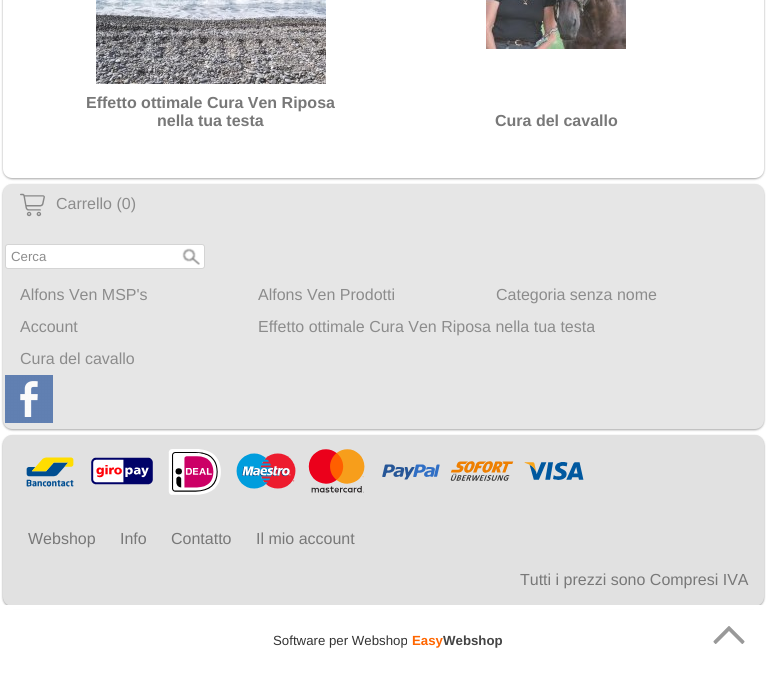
#include <cairo.h>
#include <math.h>
#include <stddef.h>

typedef struct { double x, y; const char *s; } line_t;

static void ink(cairo_t *ctx, unsigned color) {
    cairo_set_source_rgb(ctx, (color >> 16) / 255.0, (color >> 8 & 255) / 255.0, (color & 255) / 255.0);
}

static void round_path(cairo_t *ctx, double x, double y, double w, double h, double r) {
    cairo_new_sub_path(ctx);
    cairo_arc(ctx, x + w - r, y + h - r, r, 0, M_PI / 2);
    cairo_arc(ctx, x + r, y + h - r, r, M_PI / 2, M_PI);
    cairo_arc(ctx, x + r, y + r, r, M_PI, 1.5 * M_PI);
    cairo_arc(ctx, x + w - r, y + r, r, 1.5 * M_PI, 2 * M_PI);
    cairo_close_path(ctx);
}

static void blur_box(cairo_t *ctx, double x, double y, double w, double h, double r, double blur, double alpha) {
    cairo_push_group_with_content(ctx, CAIRO_CONTENT_ALPHA);
    cairo_set_operator(ctx, CAIRO_OPERATOR_SOURCE);
    for (int i = 15; i >= -15 && fmin(w, h) + blur * i / 3 > 0; i -= 2) {
        double e = blur * i / 6;
        cairo_set_source_rgba(ctx, 0, 0, 0, alpha * erfc((i - 1) / 8.5) / 2);
        round_path(ctx, x - e, y - e, w + 2 * e, h + 2 * e, fmax(0, fmin(r + e + blur * .6, fmin(w, h) / 2 + e)));
        cairo_fill(ctx);
    }
    cairo_pattern_t *soft = cairo_pop_group(ctx);
    cairo_mask(ctx, soft);
    cairo_pattern_destroy(soft);
}

static void paste(cairo_t *ctx, const char *path, double x, double y, double w, double h) {
    cairo_surface_t *image = cairo_image_surface_create_from_png(path);
    cairo_save(ctx);
    cairo_set_source_surface(ctx, image, x, y);
    cairo_rectangle(ctx, x, y, w, h);
    cairo_fill(ctx);
    cairo_restore(ctx);
    cairo_surface_destroy(image);
}

int main(void) {
    cairo_surface_t *surface = cairo_image_surface_create(CAIRO_FORMAT_RGB24, 776, 677);
    cairo_t *ctx = cairo_create(surface);
    cairo_font_options_t *options = cairo_font_options_create();
    cairo_font_options_set_hint_metrics(options, CAIRO_HINT_METRICS_OFF);
    cairo_font_options_set_hint_style(options, CAIRO_HINT_STYLE_NONE);
    cairo_set_font_options(ctx, options);
    cairo_set_miter_limit(ctx, 4);
    ink(ctx, 0xFFFFFF);
    cairo_paint(ctx);
    ink(ctx, 0x262626);
    blur_box(ctx, 3, -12, 761, 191, 9, 1, 0.4);
    ink(ctx, 0xFFFFFF);
    round_path(ctx, 3, -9, 761, 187, 9);
    cairo_fill(ctx);
    paste(ctx, "media/1.png", 96, 0, 230, 84);
    cairo_select_font_face(ctx, "Liberation Sans", CAIRO_FONT_SLANT_NORMAL, CAIRO_FONT_WEIGHT_BOLD);
    cairo_set_font_size(ctx, 16);
    ink(ctx, 0x787878);
    cairo_move_to(ctx, 86, 108);
    cairo_show_text(ctx, "Effetto ottimale Cura Ven Riposa");
    cairo_move_to(ctx, 157, 126);
    cairo_show_text(ctx, "nella tua testa");
    paste(ctx, "media/2.png", 486, 0, 140, 49);
    cairo_move_to(ctx, 495, 126);
    cairo_show_text(ctx, "Cura del cavallo");
    ink(ctx, 0x262626);
    blur_box(ctx, 3, 185, 761, 245, 9, 1, 0.4);
    ink(ctx, 0xE6E6E6);
    round_path(ctx, 3, 184, 761, 245, 9);
    cairo_fill(ctx);
    paste(ctx, "media/3.png", 20, 193, 25, 24);
    cairo_select_font_face(ctx, "Liberation Sans", CAIRO_FONT_SLANT_NORMAL, CAIRO_FONT_WEIGHT_NORMAL);
    ink(ctx, 0x8C8C8C);
    cairo_move_to(ctx, 56, 209);
    cairo_show_text(ctx, "Carrello (0)");
    ink(ctx, 0xFFFFFF);
    round_path(ctx, 5.5, 244.5, 199, 24, 2.5);
    cairo_fill_preserve(ctx);
    ink(ctx, 0xD4D4D4);
    cairo_set_line_width(ctx, 1);
    cairo_stroke(ctx);
    cairo_set_font_size(ctx, 13.25);
    ink(ctx, 0x8C8C8C);
    cairo_move_to(ctx, 11, 261);
    cairo_show_text(ctx, "Cerca");
    paste(ctx, "media/4.png", 182, 248, 18, 17);
    cairo_set_font_size(ctx, 16);
    {
        static const line_t items[] = {
            {20, 300, "Alfons Ven MSP's"},
            {258, 300, "Alfons Ven Prodotti"},
            {496, 300, "Categoria senza nome"},
            {20, 332, "Account"},
            {258, 332, "Effetto ottimale Cura Ven Riposa nella tua testa"},
            {20, 364, "Cura del cavallo"},
        };
        for (size_t i = 0; i < sizeof items / sizeof *items; i++) {
            cairo_move_to(ctx, items[i].x, items[i].y);
            cairo_show_text(ctx, items[i].s);
        }
    }
    paste(ctx, "media/5.png", 5, 375, 48, 48);
    ink(ctx, 0x000000);
    blur_box(ctx, 3, 436, 761, 171, 9, 1, 0.4);
    ink(ctx, 0xE1E1E1);
    round_path(ctx, 3, 435, 761, 171, 9);
    cairo_fill(ctx);
    paste(ctx, "media/6.png", 26, 457, 48, 30);
    paste(ctx, "media/7.png", 91, 457, 62, 28);
    paste(ctx, "media/8.png", 168, 449, 53, 46);
    paste(ctx, "media/9.png", 236, 453, 60, 36);
    paste(ctx, "media/10.png", 308, 449, 57, 44);
    paste(ctx, "media/11.png", 382, 464, 58, 16);
    paste(ctx, "media/12.png", 450, 461, 64, 20);
    paste(ctx, "media/13.png", 524, 462, 60, 18);
    ink(ctx, 0x787878);
    {
        static const line_t items[] = {
            {28, 544, "Webshop"},
            {120, 544, "Info"},
            {171, 544, "Contatto"},
            {256, 544, "Il mio account"},
            {520, 585, "Tutti i prezzi sono Compresi IVA"},
        };
        for (size_t i = 0; i < sizeof items / sizeof *items; i++) {
            cairo_move_to(ctx, items[i].x, items[i].y);
            cairo_show_text(ctx, items[i].s);
        }
    }
    ink(ctx, 0xFFFFFF);
    cairo_rectangle(ctx, 4, 605, 759, 4);
    cairo_fill(ctx);
    cairo_set_font_size(ctx, 13.25);
    ink(ctx, 0x333333);
    cairo_move_to(ctx, 273, 645);
    cairo_show_text(ctx, "Software per Webshop");
    cairo_select_font_face(ctx, "Liberation Sans", CAIRO_FONT_SLANT_NORMAL, CAIRO_FONT_WEIGHT_BOLD);
    ink(ctx, 0xFF6600);
    cairo_move_to(ctx, 412, 645);
    cairo_show_text(ctx, "Easy");
    ink(ctx, 0x444444);
    cairo_move_to(ctx, 443, 645);
    cairo_show_text(ctx, "Webshop");
    paste(ctx, "media/14.png", 713, 626, 32, 18);
    cairo_surface_write_to_png(surface, "image.png");
    cairo_font_options_destroy(options);
    cairo_destroy(ctx);
    cairo_surface_destroy(surface);
    return 0;
}
